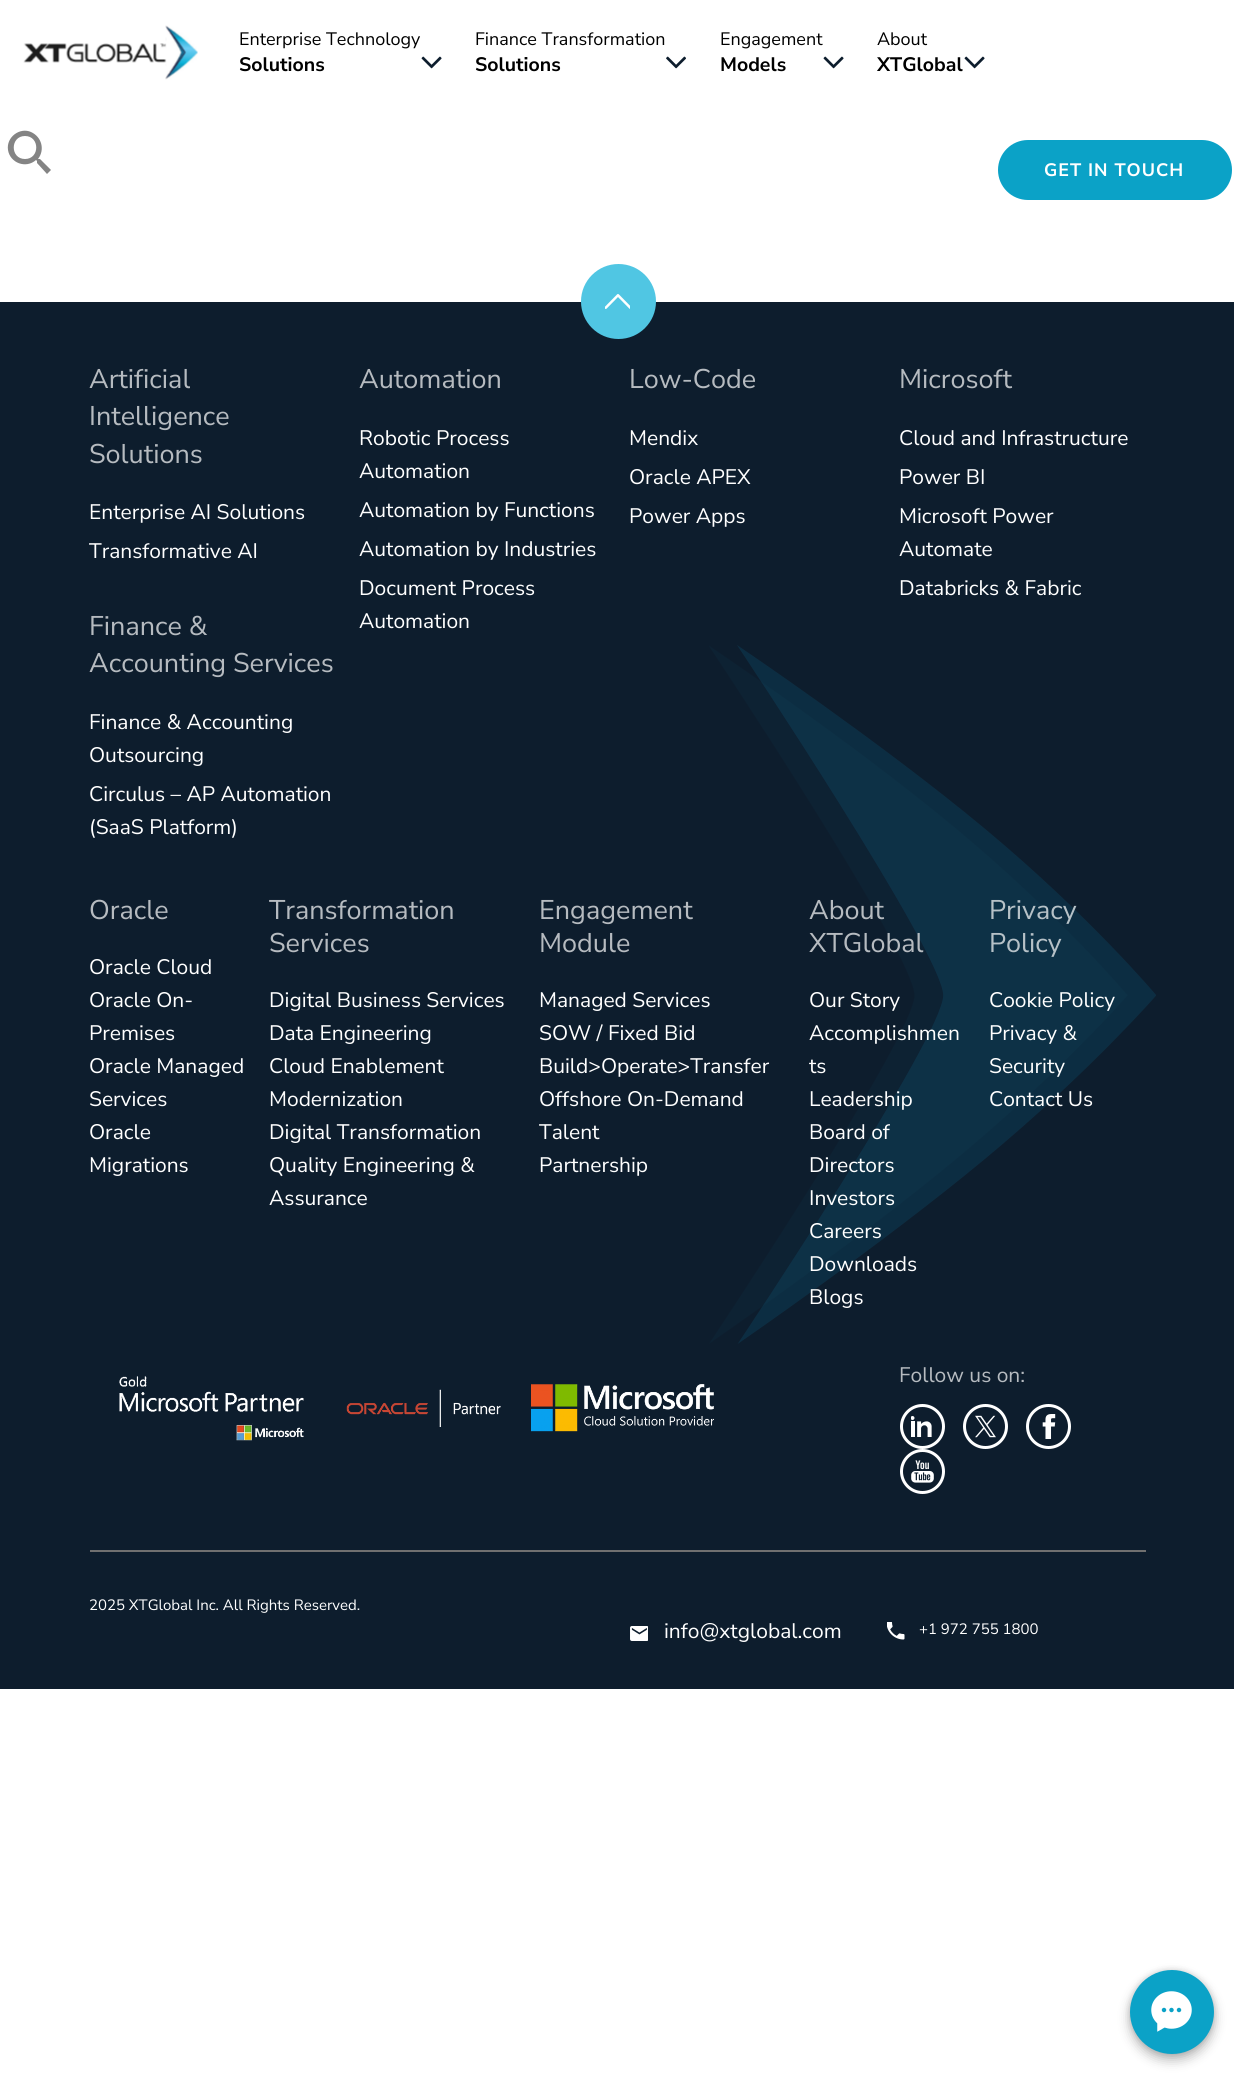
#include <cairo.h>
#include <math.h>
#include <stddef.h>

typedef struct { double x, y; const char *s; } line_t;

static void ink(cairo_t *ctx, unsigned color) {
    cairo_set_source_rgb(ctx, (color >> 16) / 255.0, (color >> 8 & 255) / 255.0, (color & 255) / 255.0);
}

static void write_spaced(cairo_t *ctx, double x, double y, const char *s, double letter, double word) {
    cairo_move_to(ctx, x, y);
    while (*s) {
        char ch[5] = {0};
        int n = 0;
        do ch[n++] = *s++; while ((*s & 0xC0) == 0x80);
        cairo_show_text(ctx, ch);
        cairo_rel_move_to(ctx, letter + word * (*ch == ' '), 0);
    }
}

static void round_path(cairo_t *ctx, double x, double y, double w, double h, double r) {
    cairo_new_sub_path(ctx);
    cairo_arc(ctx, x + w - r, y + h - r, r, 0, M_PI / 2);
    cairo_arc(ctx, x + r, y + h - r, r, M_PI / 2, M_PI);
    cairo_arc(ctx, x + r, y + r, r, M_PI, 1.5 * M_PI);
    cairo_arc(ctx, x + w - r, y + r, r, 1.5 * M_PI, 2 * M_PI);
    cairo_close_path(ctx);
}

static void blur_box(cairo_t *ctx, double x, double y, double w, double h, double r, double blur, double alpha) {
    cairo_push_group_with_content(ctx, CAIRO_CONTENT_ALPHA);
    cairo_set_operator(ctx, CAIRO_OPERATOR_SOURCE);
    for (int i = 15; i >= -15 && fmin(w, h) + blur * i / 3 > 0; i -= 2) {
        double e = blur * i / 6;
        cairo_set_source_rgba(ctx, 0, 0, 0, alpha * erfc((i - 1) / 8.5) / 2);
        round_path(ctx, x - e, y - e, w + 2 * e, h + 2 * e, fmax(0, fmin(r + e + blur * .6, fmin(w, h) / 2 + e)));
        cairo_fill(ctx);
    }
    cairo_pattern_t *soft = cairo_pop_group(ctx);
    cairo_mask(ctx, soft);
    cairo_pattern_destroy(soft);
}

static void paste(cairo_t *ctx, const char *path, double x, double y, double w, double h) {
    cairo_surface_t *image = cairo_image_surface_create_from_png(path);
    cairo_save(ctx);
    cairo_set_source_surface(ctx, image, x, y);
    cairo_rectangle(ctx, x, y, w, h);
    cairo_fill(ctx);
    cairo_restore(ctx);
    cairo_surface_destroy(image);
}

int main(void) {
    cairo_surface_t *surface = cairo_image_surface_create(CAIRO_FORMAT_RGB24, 1234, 2074);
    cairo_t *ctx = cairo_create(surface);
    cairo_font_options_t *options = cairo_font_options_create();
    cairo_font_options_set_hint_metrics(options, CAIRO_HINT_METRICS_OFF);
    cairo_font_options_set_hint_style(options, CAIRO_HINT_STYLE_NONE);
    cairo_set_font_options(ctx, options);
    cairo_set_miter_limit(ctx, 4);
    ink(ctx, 0xFFFFFF);
    cairo_paint(ctx);
    paste(ctx, "media/1.png", 23, 25, 175, 55);
    cairo_select_font_face(ctx, "Nunito Sans ExtraLight", CAIRO_FONT_SLANT_NORMAL, CAIRO_FONT_WEIGHT_NORMAL);
    cairo_set_font_size(ctx, 18);
    ink(ctx, 0x000000);
    cairo_move_to(ctx, 239, 45);
    cairo_show_text(ctx, "Enterprise Technology");
    cairo_select_font_face(ctx, "Nunito Sans", CAIRO_FONT_SLANT_NORMAL, CAIRO_FONT_WEIGHT_BOLD);
    cairo_set_font_size(ctx, 19.5);
    cairo_move_to(ctx, 239, 71);
    cairo_show_text(ctx, "Solutions");
    paste(ctx, "media/2.png", 421, 56, 21, 13);
    cairo_select_font_face(ctx, "Nunito Sans ExtraLight", CAIRO_FONT_SLANT_NORMAL, CAIRO_FONT_WEIGHT_NORMAL);
    cairo_set_font_size(ctx, 18);
    cairo_move_to(ctx, 475, 45);
    cairo_show_text(ctx, "Finance Transformation");
    cairo_select_font_face(ctx, "Nunito Sans", CAIRO_FONT_SLANT_NORMAL, CAIRO_FONT_WEIGHT_BOLD);
    cairo_set_font_size(ctx, 19.5);
    cairo_move_to(ctx, 475, 71);
    cairo_show_text(ctx, "Solutions");
    paste(ctx, "media/3.png", 666, 56, 20, 13);
    cairo_select_font_face(ctx, "Nunito Sans ExtraLight", CAIRO_FONT_SLANT_NORMAL, CAIRO_FONT_WEIGHT_NORMAL);
    cairo_set_font_size(ctx, 18);
    cairo_move_to(ctx, 720, 45);
    cairo_show_text(ctx, "Engagement");
    cairo_select_font_face(ctx, "Nunito Sans", CAIRO_FONT_SLANT_NORMAL, CAIRO_FONT_WEIGHT_BOLD);
    cairo_set_font_size(ctx, 19.5);
    cairo_move_to(ctx, 720, 71);
    cairo_show_text(ctx, "Models");
    paste(ctx, "media/2.png", 823, 56, 21, 13);
    cairo_select_font_face(ctx, "Nunito Sans ExtraLight", CAIRO_FONT_SLANT_NORMAL, CAIRO_FONT_WEIGHT_NORMAL);
    cairo_set_font_size(ctx, 18);
    cairo_move_to(ctx, 877, 45);
    cairo_show_text(ctx, "About");
    cairo_select_font_face(ctx, "Nunito Sans", CAIRO_FONT_SLANT_NORMAL, CAIRO_FONT_WEIGHT_BOLD);
    cairo_set_font_size(ctx, 19.5);
    cairo_move_to(ctx, 877, 71);
    cairo_show_text(ctx, "XTGlobal");
    paste(ctx, "media/2.png", 964, 56, 21, 13);
    ink(ctx, 0x848484);
    cairo_set_fill_rule(ctx, CAIRO_FILL_RULE_EVEN_ODD);
    cairo_new_path(ctx);
    cairo_move_to(ctx, 40, 159);
    cairo_line_to(ctx, 51, 170);
    cairo_line_to(ctx, 47, 174);
    cairo_line_to(ctx, 37, 163);
    cairo_line_to(ctx, 37, 161);
    cairo_line_to(ctx, 36, 160);
    cairo_curve_to(ctx, 26, 169, 10, 163, 8, 150);
    cairo_curve_to(ctx, 6, 137, 20, 127, 31, 132);
    cairo_curve_to(ctx, 42, 137, 45, 150, 38, 159);
    cairo_close_path(ctx);
    cairo_move_to(ctx, 25, 159);
    cairo_curve_to(ctx, 40, 159, 40, 136, 25, 136);
    cairo_curve_to(ctx, 10, 136, 10, 159, 25, 159);
    cairo_close_path(ctx);
    cairo_fill(ctx);
    ink(ctx, 0x0BA2C7);
    round_path(ctx, 998, 140, 234, 60, 30);
    cairo_fill(ctx);
    cairo_set_font_size(ctx, 18);
    ink(ctx, 0xFFFFFF);
    write_spaced(ctx, 1044, 176, "GET IN TOUCH", 1, 0);
    ink(ctx, 0x0D1D2D);
    cairo_rectangle(ctx, 0, 302, 1234, 1387);
    cairo_fill(ctx);
    paste(ctx, "media/4.png", 709, 645, 447, 699);
    ink(ctx, 0x50C6E3);
    cairo_arc(ctx, 618.5, 301.5, 37.5, 0, 2 * M_PI);
    cairo_fill(ctx);
    paste(ctx, "media/5.png", 605, 294, 25, 15);
    cairo_select_font_face(ctx, "Nunito Sans ExtraLight", CAIRO_FONT_SLANT_NORMAL, CAIRO_FONT_WEIGHT_NORMAL);
    cairo_set_font_size(ctx, 27);
    ink(ctx, 0xB6BBC0);
    {
        static const line_t items[] = {
            {89, 388, "Artificial"},
            {89, 425, "Intelligence"},
            {89, 463, "Solutions"},
        };
        for (size_t i = 0; i < sizeof items / sizeof *items; i++) {
            cairo_move_to(ctx, items[i].x, items[i].y);
            cairo_show_text(ctx, items[i].s);
        }
    }
    cairo_set_font_size(ctx, 21);
    ink(ctx, 0xFFFFFF);
    cairo_move_to(ctx, 89, 519);
    cairo_show_text(ctx, "Enterprise AI Solutions");
    cairo_move_to(ctx, 89, 558);
    cairo_show_text(ctx, "Transformative AI");
    cairo_set_font_size(ctx, 27);
    ink(ctx, 0xB6BBC0);
    cairo_move_to(ctx, 89, 635);
    cairo_show_text(ctx, "Finance &");
    cairo_move_to(ctx, 89, 672);
    cairo_show_text(ctx, "Accounting Services");
    cairo_set_font_size(ctx, 21);
    ink(ctx, 0xFFFFFF);
    {
        static const line_t items[] = {
            {89, 729, "Finance & Accounting"},
            {89, 762, "Outsourcing"},
            {89, 801, "Circulus – AP Automation"},
            {89, 834, "(SaaS Platform)"},
        };
        for (size_t i = 0; i < sizeof items / sizeof *items; i++) {
            cairo_move_to(ctx, items[i].x, items[i].y);
            cairo_show_text(ctx, items[i].s);
        }
    }
    cairo_set_font_size(ctx, 27);
    ink(ctx, 0xB6BBC0);
    cairo_move_to(ctx, 359, 388);
    cairo_show_text(ctx, "Automation");
    cairo_set_font_size(ctx, 21);
    ink(ctx, 0xFFFFFF);
    {
        static const line_t items[] = {
            {359, 445, "Robotic Process"},
            {359, 478, "Automation"},
            {359, 517, "Automation by Functions"},
            {359, 556, "Automation by Industries"},
            {359, 595, "Document Process"},
            {359, 628, "Automation"},
        };
        for (size_t i = 0; i < sizeof items / sizeof *items; i++) {
            cairo_move_to(ctx, items[i].x, items[i].y);
            cairo_show_text(ctx, items[i].s);
        }
    }
    cairo_set_font_size(ctx, 27);
    ink(ctx, 0xB6BBC0);
    cairo_move_to(ctx, 629, 388);
    cairo_show_text(ctx, "Low-Code");
    cairo_set_font_size(ctx, 21);
    ink(ctx, 0xFFFFFF);
    {
        static const line_t items[] = {
            {629, 445, "Mendix"},
            {629, 484, "Oracle APEX"},
            {629, 523, "Power Apps"},
        };
        for (size_t i = 0; i < sizeof items / sizeof *items; i++) {
            cairo_move_to(ctx, items[i].x, items[i].y);
            cairo_show_text(ctx, items[i].s);
        }
    }
    cairo_set_font_size(ctx, 27);
    ink(ctx, 0xB6BBC0);
    cairo_move_to(ctx, 899, 388);
    cairo_show_text(ctx, "Microsoft");
    cairo_set_font_size(ctx, 21);
    ink(ctx, 0xFFFFFF);
    {
        static const line_t items[] = {
            {899, 445, "Cloud and Infrastructure"},
            {899, 484, "Power BI"},
            {899, 523, "Microsoft Power"},
            {899, 556, "Automate"},
            {899, 595, "Databricks & Fabric"},
        };
        for (size_t i = 0; i < sizeof items / sizeof *items; i++) {
            cairo_move_to(ctx, items[i].x, items[i].y);
            cairo_show_text(ctx, items[i].s);
        }
    }
    cairo_set_font_size(ctx, 27);
    ink(ctx, 0xB6BBC0);
    cairo_move_to(ctx, 89, 919);
    cairo_show_text(ctx, "Oracle");
    cairo_set_font_size(ctx, 21);
    ink(ctx, 0xFFFFFF);
    {
        static const line_t items[] = {
            {89, 974, "Oracle Cloud"},
            {89, 1007, "Oracle On-"},
            {89, 1040, "Premises"},
            {89, 1073, "Oracle Managed"},
            {89, 1106, "Services"},
            {89, 1139, "Oracle"},
            {89, 1172, "Migrations"},
        };
        for (size_t i = 0; i < sizeof items / sizeof *items; i++) {
            cairo_move_to(ctx, items[i].x, items[i].y);
            cairo_show_text(ctx, items[i].s);
        }
    }
    cairo_set_font_size(ctx, 27);
    ink(ctx, 0xB6BBC0);
    cairo_move_to(ctx, 269, 919);
    cairo_show_text(ctx, "Transformation");
    cairo_move_to(ctx, 269, 952);
    cairo_show_text(ctx, "Services");
    cairo_set_font_size(ctx, 21);
    ink(ctx, 0xFFFFFF);
    {
        static const line_t items[] = {
            {269, 1007, "Digital Business Services"},
            {269, 1040, "Data Engineering"},
            {269, 1073, "Cloud Enablement"},
            {269, 1106, "Modernization"},
            {269, 1139, "Digital Transformation"},
            {269, 1172, "Quality Engineering &"},
            {269, 1205, "Assurance"},
        };
        for (size_t i = 0; i < sizeof items / sizeof *items; i++) {
            cairo_move_to(ctx, items[i].x, items[i].y);
            cairo_show_text(ctx, items[i].s);
        }
    }
    cairo_set_font_size(ctx, 27);
    ink(ctx, 0xB6BBC0);
    cairo_move_to(ctx, 539, 919);
    cairo_show_text(ctx, "Engagement");
    cairo_move_to(ctx, 539, 952);
    cairo_show_text(ctx, "Module");
    cairo_set_font_size(ctx, 21);
    ink(ctx, 0xFFFFFF);
    {
        static const line_t items[] = {
            {539, 1007, "Managed Services"},
            {539, 1040, "SOW / Fixed Bid"},
            {539, 1073, "Build>Operate>Transfer"},
            {539, 1106, "Offshore On-Demand"},
            {539, 1139, "Talent"},
            {539, 1172, "Partnership"},
        };
        for (size_t i = 0; i < sizeof items / sizeof *items; i++) {
            cairo_move_to(ctx, items[i].x, items[i].y);
            cairo_show_text(ctx, items[i].s);
        }
    }
    cairo_set_font_size(ctx, 27);
    ink(ctx, 0xB6BBC0);
    cairo_move_to(ctx, 809, 919);
    cairo_show_text(ctx, "About");
    cairo_move_to(ctx, 809, 952);
    cairo_show_text(ctx, "XTGlobal");
    cairo_set_font_size(ctx, 21);
    ink(ctx, 0xFFFFFF);
    {
        static const line_t items[] = {
            {809, 1007, "Our Story"},
            {809, 1040, "Accomplishmen"},
            {809, 1073, "ts"},
            {809, 1106, "Leadership"},
            {809, 1139, "Board of"},
            {809, 1172, "Directors"},
            {809, 1205, "Investors"},
            {809, 1238, "Careers"},
            {809, 1271, "Downloads"},
            {809, 1304, "Blogs"},
        };
        for (size_t i = 0; i < sizeof items / sizeof *items; i++) {
            cairo_move_to(ctx, items[i].x, items[i].y);
            cairo_show_text(ctx, items[i].s);
        }
    }
    cairo_set_font_size(ctx, 27);
    ink(ctx, 0xB6C1C7);
    cairo_move_to(ctx, 989, 919);
    cairo_show_text(ctx, "Privacy");
    cairo_move_to(ctx, 989, 952);
    cairo_show_text(ctx, "Policy");
    cairo_set_font_size(ctx, 21);
    ink(ctx, 0xFFFFFF);
    {
        static const line_t items[] = {
            {989, 1007, "Cookie Policy"},
            {989, 1040, "Privacy &"},
            {989, 1073, "Security"},
            {989, 1106, "Contact Us"},
        };
        for (size_t i = 0; i < sizeof items / sizeof *items; i++) {
            cairo_move_to(ctx, items[i].x, items[i].y);
            cairo_show_text(ctx, items[i].s);
        }
    }
    paste(ctx, "media/6.png", 119, 1376, 595, 65);
    ink(ctx, 0xB6BBC0);
    cairo_move_to(ctx, 899, 1382);
    cairo_show_text(ctx, "Follow us on:");
    cairo_new_path(ctx);
    cairo_arc(ctx, 922.5, 1426.5, 21, 0, 2 * M_PI);
    ink(ctx, 0xFFFFFF);
    cairo_set_line_width(ctx, 3);
    cairo_stroke(ctx);
    paste(ctx, "media/7.png", 911, 1416, 21, 21);
    cairo_arc(ctx, 985.5, 1426.5, 21, 0, 2 * M_PI);
    cairo_stroke(ctx);
    paste(ctx, "media/8.png", 975, 1415, 21, 23);
    cairo_arc(ctx, 1048.5, 1426.5, 21, 0, 2 * M_PI);
    cairo_stroke(ctx);
    paste(ctx, "media/9.png", 1042, 1414, 14, 25);
    cairo_arc(ctx, 922.5, 1471.5, 21, 0, 2 * M_PI);
    cairo_stroke(ctx);
    paste(ctx, "media/10.png", 911, 1460, 23, 23);
    ink(ctx, 0x707070);
    cairo_rectangle(ctx, 90, 1550, 1056, 2);
    cairo_fill(ctx);
    cairo_set_font_size(ctx, 15);
    ink(ctx, 0xFFFFFF);
    cairo_move_to(ctx, 89, 1610);
    cairo_show_text(ctx, "2025 XTGlobal Inc. All Rights Reserved.");
    paste(ctx, "media/11.png", 630, 1626, 18, 15);
    cairo_set_font_size(ctx, 21);
    cairo_move_to(ctx, 664, 1638);
    cairo_show_text(ctx, "info@xtglobal.com");
    paste(ctx, "media/12.png", 887, 1622, 18, 18);
    cairo_set_font_size(ctx, 15);
    cairo_move_to(ctx, 919, 1634);
    cairo_show_text(ctx, "+1 972 755 1800");
    ink(ctx, 0x000000);
    blur_box(ctx, 1130, 1976, 84, 84, 42, 6, 0.28);
    blur_box(ctx, 1130, 1970, 84, 84, 42, 3, 0.14);
    ink(ctx, 0x0BA2C7);
    cairo_arc(ctx, 1172, 2012, 42, 0, 2 * M_PI);
    cairo_fill(ctx);
    paste(ctx, "media/13.png", 1151, 1991, 41, 41);
    cairo_surface_write_to_png(surface, "image.png");
    cairo_font_options_destroy(options);
    cairo_destroy(ctx);
    cairo_surface_destroy(surface);
    return 0;
}
